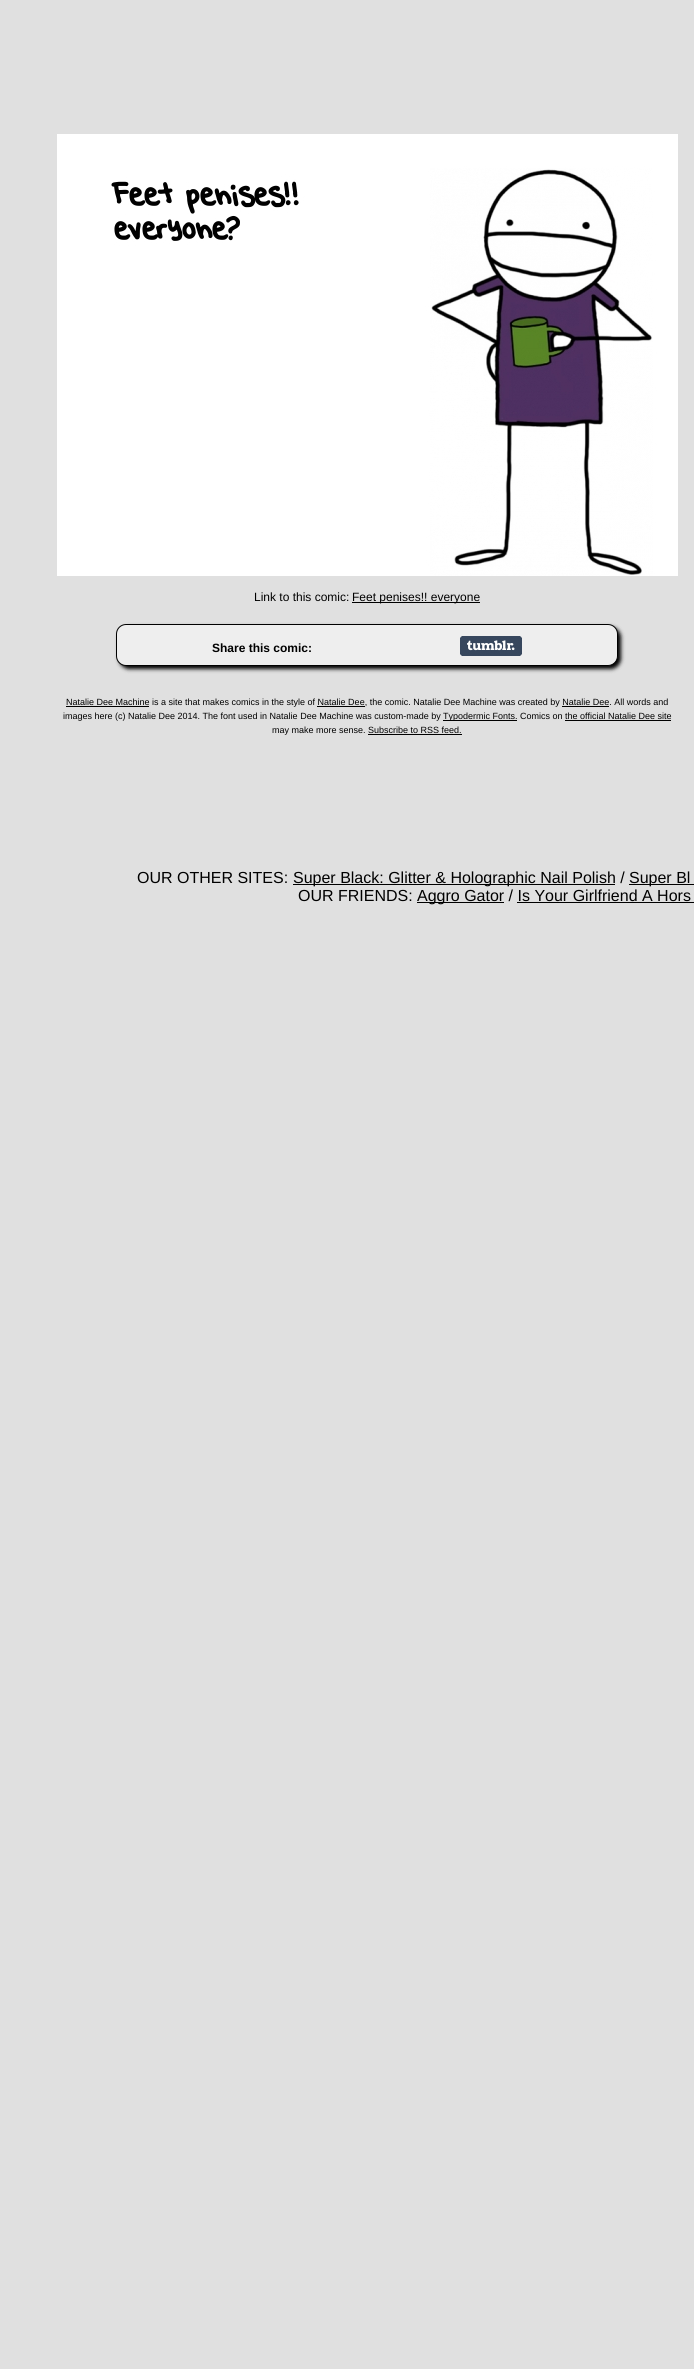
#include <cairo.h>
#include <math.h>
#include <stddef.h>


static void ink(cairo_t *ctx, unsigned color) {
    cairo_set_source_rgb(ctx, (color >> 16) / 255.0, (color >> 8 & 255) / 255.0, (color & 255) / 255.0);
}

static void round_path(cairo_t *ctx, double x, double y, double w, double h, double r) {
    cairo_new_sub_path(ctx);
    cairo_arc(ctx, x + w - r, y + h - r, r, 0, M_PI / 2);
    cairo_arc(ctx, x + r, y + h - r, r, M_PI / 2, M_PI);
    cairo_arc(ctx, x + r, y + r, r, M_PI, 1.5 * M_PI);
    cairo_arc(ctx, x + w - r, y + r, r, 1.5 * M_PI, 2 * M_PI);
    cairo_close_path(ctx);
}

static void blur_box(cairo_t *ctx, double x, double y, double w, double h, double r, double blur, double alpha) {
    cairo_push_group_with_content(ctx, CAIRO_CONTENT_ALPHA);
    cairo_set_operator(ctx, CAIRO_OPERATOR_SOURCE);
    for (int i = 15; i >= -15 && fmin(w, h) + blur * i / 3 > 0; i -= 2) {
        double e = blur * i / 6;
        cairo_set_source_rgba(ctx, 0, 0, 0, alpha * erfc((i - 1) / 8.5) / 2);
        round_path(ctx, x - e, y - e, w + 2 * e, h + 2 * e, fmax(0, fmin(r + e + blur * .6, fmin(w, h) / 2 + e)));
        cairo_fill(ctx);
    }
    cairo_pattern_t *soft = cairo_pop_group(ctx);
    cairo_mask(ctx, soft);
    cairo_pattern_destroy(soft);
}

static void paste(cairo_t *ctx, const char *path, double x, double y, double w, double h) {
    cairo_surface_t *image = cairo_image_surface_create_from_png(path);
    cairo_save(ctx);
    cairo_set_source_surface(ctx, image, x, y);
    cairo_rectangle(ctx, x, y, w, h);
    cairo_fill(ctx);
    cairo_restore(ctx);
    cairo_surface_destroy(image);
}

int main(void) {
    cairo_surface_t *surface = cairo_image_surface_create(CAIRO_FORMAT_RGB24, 694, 2369);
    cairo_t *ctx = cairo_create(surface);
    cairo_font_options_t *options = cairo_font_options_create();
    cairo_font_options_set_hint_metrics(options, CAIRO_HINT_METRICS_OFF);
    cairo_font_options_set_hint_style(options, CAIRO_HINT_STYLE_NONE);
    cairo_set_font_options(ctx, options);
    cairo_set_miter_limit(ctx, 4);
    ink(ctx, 0xE0E0E0);
    cairo_paint(ctx);
    paste(ctx, "media/1.png", 57, 134, 621, 442);
    cairo_select_font_face(ctx, "Liberation Sans", CAIRO_FONT_SLANT_NORMAL, CAIRO_FONT_WEIGHT_NORMAL);
    cairo_set_font_size(ctx, 12);
    ink(ctx, 0x000000);
    cairo_move_to(ctx, 254, 601);
    cairo_show_text(ctx, "Link to this comic:");
    cairo_rectangle(ctx, 352, 602, 128, 1);
    cairo_fill(ctx);
    cairo_move_to(ctx, 352, 601);
    cairo_show_text(ctx, "Feet penises!! everyone");
    ink(ctx, 0x000000);
    blur_box(ctx, 119, 627, 502, 42, 10, 2, 1);
    ink(ctx, 0xEEEEEE);
    round_path(ctx, 116.5, 624.5, 501, 41, 9.5);
    cairo_fill_preserve(ctx);
    ink(ctx, 0x000000);
    cairo_set_line_width(ctx, 1);
    cairo_stroke(ctx);
    cairo_select_font_face(ctx, "Liberation Sans", CAIRO_FONT_SLANT_NORMAL, CAIRO_FONT_WEIGHT_BOLD);
    cairo_move_to(ctx, 212, 652);
    cairo_show_text(ctx, "Share this comic:");
    paste(ctx, "media/2.png", 460, 636, 62, 20);
    cairo_rectangle(ctx, 66, 706, 83, 1);
    cairo_fill(ctx);
    cairo_select_font_face(ctx, "Liberation Sans", CAIRO_FONT_SLANT_NORMAL, CAIRO_FONT_WEIGHT_NORMAL);
    cairo_set_font_size(ctx, 9);
    cairo_move_to(ctx, 66, 705);
    cairo_show_text(ctx, "Natalie Dee Machine is a site that makes comics in the style of Natalie Dee, the comic. Natalie Dee Machine was created by Natalie Dee. All words and");
    cairo_rectangle(ctx, 317, 706, 48, 1);
    cairo_fill(ctx);
    cairo_rectangle(ctx, 562, 706, 47, 1);
    cairo_fill(ctx);
    cairo_move_to(ctx, 63, 719);
    cairo_show_text(ctx, "images here (c) Natalie Dee 2014. The font used in Natalie Dee Machine was custom-made by");
    cairo_rectangle(ctx, 443, 720, 74, 1);
    cairo_fill(ctx);
    cairo_move_to(ctx, 443, 719);
    cairo_show_text(ctx, "Typodermic Fonts. Comics on the official Natalie Dee site");
    cairo_rectangle(ctx, 565, 720, 106, 1);
    cairo_fill(ctx);
    cairo_move_to(ctx, 272, 733);
    cairo_show_text(ctx, "may make more sense. Subscribe to RSS feed.");
    cairo_rectangle(ctx, 368, 734, 94, 1);
    cairo_fill(ctx);
    cairo_set_font_size(ctx, 16);
    cairo_move_to(ctx, 137, 883);
    cairo_show_text(ctx, "OUR OTHER SITES:");
    cairo_rectangle(ctx, 293, 884, 322, 1);
    cairo_fill(ctx);
    cairo_move_to(ctx, 293, 883);
    cairo_show_text(ctx, "Super Black: Glitter & Holographic Nail Polish /");
    cairo_rectangle(ctx, 629, 884, 65, 1);
    cairo_fill(ctx);
    cairo_move_to(ctx, 629, 883);
    cairo_show_text(ctx, "Super Bl");
    cairo_move_to(ctx, 298, 901);
    cairo_show_text(ctx, "OUR FRIENDS:");
    cairo_rectangle(ctx, 417, 902, 87, 1);
    cairo_fill(ctx);
    cairo_move_to(ctx, 417, 901);
    cairo_show_text(ctx, "Aggro Gator / Is Your Girlfriend A Hors");
    cairo_rectangle(ctx, 517, 902, 177, 1);
    cairo_fill(ctx);
    cairo_surface_write_to_png(surface, "image.png");
    cairo_font_options_destroy(options);
    cairo_destroy(ctx);
    cairo_surface_destroy(surface);
    return 0;
}
